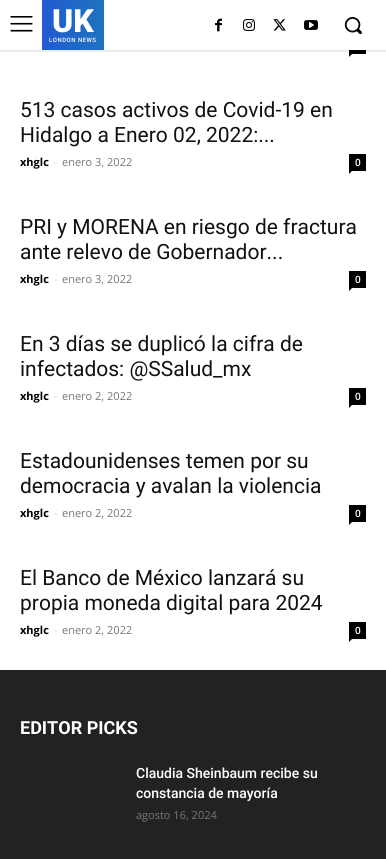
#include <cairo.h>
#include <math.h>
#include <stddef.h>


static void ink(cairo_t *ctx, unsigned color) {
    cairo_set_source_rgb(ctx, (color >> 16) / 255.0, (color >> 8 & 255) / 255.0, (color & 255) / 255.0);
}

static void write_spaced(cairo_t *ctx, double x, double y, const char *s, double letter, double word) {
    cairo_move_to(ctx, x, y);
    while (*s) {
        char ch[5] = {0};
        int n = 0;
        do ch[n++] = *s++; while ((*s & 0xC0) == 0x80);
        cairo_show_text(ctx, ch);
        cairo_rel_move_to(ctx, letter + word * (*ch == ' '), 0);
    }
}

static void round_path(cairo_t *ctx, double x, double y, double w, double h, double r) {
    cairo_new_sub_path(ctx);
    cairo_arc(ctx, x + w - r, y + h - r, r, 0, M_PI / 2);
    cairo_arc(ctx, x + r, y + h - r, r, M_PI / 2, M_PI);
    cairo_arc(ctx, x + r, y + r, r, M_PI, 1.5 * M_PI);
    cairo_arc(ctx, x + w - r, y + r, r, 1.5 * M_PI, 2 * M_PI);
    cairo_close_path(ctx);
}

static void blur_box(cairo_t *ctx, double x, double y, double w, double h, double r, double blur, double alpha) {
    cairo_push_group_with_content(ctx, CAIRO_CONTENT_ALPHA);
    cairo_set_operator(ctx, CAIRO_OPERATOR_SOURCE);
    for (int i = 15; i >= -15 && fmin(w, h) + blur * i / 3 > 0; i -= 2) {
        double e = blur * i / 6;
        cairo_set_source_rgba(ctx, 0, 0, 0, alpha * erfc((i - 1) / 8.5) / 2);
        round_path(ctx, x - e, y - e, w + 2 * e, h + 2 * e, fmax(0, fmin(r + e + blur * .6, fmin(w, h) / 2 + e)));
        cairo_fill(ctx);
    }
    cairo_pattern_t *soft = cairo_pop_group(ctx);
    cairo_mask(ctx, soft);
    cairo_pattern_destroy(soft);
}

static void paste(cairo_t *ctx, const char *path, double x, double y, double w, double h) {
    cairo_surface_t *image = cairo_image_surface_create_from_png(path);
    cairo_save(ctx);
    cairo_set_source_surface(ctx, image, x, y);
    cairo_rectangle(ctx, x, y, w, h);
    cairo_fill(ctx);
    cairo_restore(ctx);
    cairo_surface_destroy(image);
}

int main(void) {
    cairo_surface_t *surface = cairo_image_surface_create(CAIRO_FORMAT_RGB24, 386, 859);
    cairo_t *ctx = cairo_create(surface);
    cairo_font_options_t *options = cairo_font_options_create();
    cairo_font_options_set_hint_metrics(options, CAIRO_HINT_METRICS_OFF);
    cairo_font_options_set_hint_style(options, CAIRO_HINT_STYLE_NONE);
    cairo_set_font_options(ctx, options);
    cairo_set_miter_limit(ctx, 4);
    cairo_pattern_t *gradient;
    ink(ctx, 0xFFFFFF);
    cairo_paint(ctx);
    paste(ctx, "media/1.png", 10, 16, 23, 16);
    gradient = cairo_pattern_create_linear(104, 25, 42, 25);
    cairo_pattern_add_color_stop_rgba(gradient, 0, 0.118, 0.451, 0.745, 1);
    cairo_pattern_add_color_stop_rgba(gradient, 1, 0.129, 0.353, 0.827, 1);
    cairo_set_source(ctx, gradient);
    cairo_pattern_destroy(gradient);
    cairo_rectangle(ctx, 42, 0, 62, 50);
    cairo_fill(ctx);
    paste(ctx, "media/2.png", 215, 18, 7, 14);
    paste(ctx, "media/3.png", 243, 19, 12, 12);
    paste(ctx, "media/4.png", 273, 19, 13, 12);
    paste(ctx, "media/5.png", 304, 20, 14, 10);
    paste(ctx, "media/6.png", 344, 17, 18, 18);
    ink(ctx, 0x000000);
    cairo_rectangle(ctx, 349, 50, 17, 4);
    cairo_fill(ctx);
    cairo_new_path(ctx);
    cairo_move_to(ctx, 349, 54);
    cairo_line_to(ctx, 352, 54);
    cairo_line_to(ctx, 349, 57);
    cairo_close_path(ctx);
    cairo_fill(ctx);
    cairo_save(ctx);
    cairo_rectangle(ctx, 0, 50, 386, 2);
    cairo_clip(ctx);
    ink(ctx, 0x000000);
    blur_box(ctx, -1, 0, 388, 52, 0, 0.5, 0.08);
    cairo_restore(ctx);
    cairo_select_font_face(ctx, "Roboto Black", CAIRO_FONT_SLANT_NORMAL, CAIRO_FONT_WEIGHT_NORMAL);
    cairo_set_font_size(ctx, 32);
    ink(ctx, 0xFFFFFF);
    cairo_move_to(ctx, 52, 32);
    cairo_show_text(ctx, "UK");
    cairo_select_font_face(ctx, "Roboto Medium", CAIRO_FONT_SLANT_NORMAL, CAIRO_FONT_WEIGHT_NORMAL);
    cairo_set_font_size(ctx, 6);
    write_spaced(ctx, 49, 42, "LONDON NEWS", 0.5, 0);
    cairo_select_font_face(ctx, "Roboto", CAIRO_FONT_SLANT_NORMAL, CAIRO_FONT_WEIGHT_NORMAL);
    cairo_set_font_size(ctx, 21);
    ink(ctx, 0x111111);
    cairo_move_to(ctx, 20, 117);
    cairo_show_text(ctx, "513 casos activos de Covid-19 en");
    cairo_move_to(ctx, 20, 142);
    cairo_show_text(ctx, "Hidalgo a Enero 02, 2022:...");
    cairo_select_font_face(ctx, "Open Sans", CAIRO_FONT_SLANT_NORMAL, CAIRO_FONT_WEIGHT_BOLD);
    cairo_set_font_size(ctx, 11);
    ink(ctx, 0x000000);
    cairo_move_to(ctx, 20, 166);
    cairo_show_text(ctx, "xhglc");
    cairo_select_font_face(ctx, "Open Sans", CAIRO_FONT_SLANT_NORMAL, CAIRO_FONT_WEIGHT_NORMAL);
    ink(ctx, 0xCCCCCC);
    cairo_move_to(ctx, 54, 166);
    cairo_show_text(ctx, "-");
    ink(ctx, 0x767676);
    cairo_move_to(ctx, 62, 166);
    cairo_show_text(ctx, "enero 3, 2022");
    ink(ctx, 0x000000);
    cairo_rectangle(ctx, 349, 154, 17, 17);
    cairo_fill(ctx);
    cairo_select_font_face(ctx, "Open Sans SemiBold", CAIRO_FONT_SLANT_NORMAL, CAIRO_FONT_WEIGHT_NORMAL);
    cairo_set_font_size(ctx, 10);
    ink(ctx, 0xFFFFFF);
    cairo_move_to(ctx, 355, 166);
    cairo_show_text(ctx, "0");
    ink(ctx, 0x000000);
    cairo_new_path(ctx);
    cairo_move_to(ctx, 349, 171);
    cairo_line_to(ctx, 352, 171);
    cairo_line_to(ctx, 349, 174);
    cairo_close_path(ctx);
    cairo_fill(ctx);
    cairo_select_font_face(ctx, "Roboto", CAIRO_FONT_SLANT_NORMAL, CAIRO_FONT_WEIGHT_NORMAL);
    cairo_set_font_size(ctx, 21);
    ink(ctx, 0x111111);
    cairo_move_to(ctx, 20, 234);
    cairo_show_text(ctx, "PRI y MORENA en riesgo de fractura");
    cairo_move_to(ctx, 20, 259);
    cairo_show_text(ctx, "ante relevo de Gobernador...");
    cairo_select_font_face(ctx, "Open Sans", CAIRO_FONT_SLANT_NORMAL, CAIRO_FONT_WEIGHT_BOLD);
    cairo_set_font_size(ctx, 11);
    ink(ctx, 0x000000);
    cairo_move_to(ctx, 20, 283);
    cairo_show_text(ctx, "xhglc");
    cairo_select_font_face(ctx, "Open Sans", CAIRO_FONT_SLANT_NORMAL, CAIRO_FONT_WEIGHT_NORMAL);
    ink(ctx, 0xCCCCCC);
    cairo_move_to(ctx, 54, 283);
    cairo_show_text(ctx, "-");
    ink(ctx, 0x767676);
    cairo_move_to(ctx, 62, 283);
    cairo_show_text(ctx, "enero 3, 2022");
    ink(ctx, 0x000000);
    cairo_rectangle(ctx, 349, 271, 17, 17);
    cairo_fill(ctx);
    cairo_select_font_face(ctx, "Open Sans SemiBold", CAIRO_FONT_SLANT_NORMAL, CAIRO_FONT_WEIGHT_NORMAL);
    cairo_set_font_size(ctx, 10);
    ink(ctx, 0xFFFFFF);
    cairo_move_to(ctx, 355, 283);
    cairo_show_text(ctx, "0");
    ink(ctx, 0x000000);
    cairo_new_path(ctx);
    cairo_move_to(ctx, 349, 288);
    cairo_line_to(ctx, 352, 288);
    cairo_line_to(ctx, 349, 291);
    cairo_close_path(ctx);
    cairo_fill(ctx);
    cairo_select_font_face(ctx, "Roboto", CAIRO_FONT_SLANT_NORMAL, CAIRO_FONT_WEIGHT_NORMAL);
    cairo_set_font_size(ctx, 21);
    ink(ctx, 0x111111);
    cairo_move_to(ctx, 20, 351);
    cairo_show_text(ctx, "En 3 días se duplicó la cifra de");
    cairo_move_to(ctx, 20, 376);
    cairo_show_text(ctx, "infectados: @SSalud_mx");
    cairo_select_font_face(ctx, "Open Sans", CAIRO_FONT_SLANT_NORMAL, CAIRO_FONT_WEIGHT_BOLD);
    cairo_set_font_size(ctx, 11);
    ink(ctx, 0x000000);
    cairo_move_to(ctx, 20, 400);
    cairo_show_text(ctx, "xhglc");
    cairo_select_font_face(ctx, "Open Sans", CAIRO_FONT_SLANT_NORMAL, CAIRO_FONT_WEIGHT_NORMAL);
    ink(ctx, 0xCCCCCC);
    cairo_move_to(ctx, 54, 400);
    cairo_show_text(ctx, "-");
    ink(ctx, 0x767676);
    cairo_move_to(ctx, 62, 400);
    cairo_show_text(ctx, "enero 2, 2022");
    ink(ctx, 0x000000);
    cairo_rectangle(ctx, 349, 388, 17, 17);
    cairo_fill(ctx);
    cairo_select_font_face(ctx, "Open Sans SemiBold", CAIRO_FONT_SLANT_NORMAL, CAIRO_FONT_WEIGHT_NORMAL);
    cairo_set_font_size(ctx, 10);
    ink(ctx, 0xFFFFFF);
    cairo_move_to(ctx, 355, 400);
    cairo_show_text(ctx, "0");
    ink(ctx, 0x000000);
    cairo_new_path(ctx);
    cairo_move_to(ctx, 349, 405);
    cairo_line_to(ctx, 352, 405);
    cairo_line_to(ctx, 349, 408);
    cairo_close_path(ctx);
    cairo_fill(ctx);
    cairo_select_font_face(ctx, "Roboto", CAIRO_FONT_SLANT_NORMAL, CAIRO_FONT_WEIGHT_NORMAL);
    cairo_set_font_size(ctx, 21);
    ink(ctx, 0x111111);
    cairo_move_to(ctx, 20, 468);
    cairo_show_text(ctx, "Estadounidenses temen por su");
    cairo_move_to(ctx, 20, 493);
    cairo_show_text(ctx, "democracia y avalan la violencia");
    cairo_select_font_face(ctx, "Open Sans", CAIRO_FONT_SLANT_NORMAL, CAIRO_FONT_WEIGHT_BOLD);
    cairo_set_font_size(ctx, 11);
    ink(ctx, 0x000000);
    cairo_move_to(ctx, 20, 517);
    cairo_show_text(ctx, "xhglc");
    cairo_select_font_face(ctx, "Open Sans", CAIRO_FONT_SLANT_NORMAL, CAIRO_FONT_WEIGHT_NORMAL);
    ink(ctx, 0xCCCCCC);
    cairo_move_to(ctx, 54, 517);
    cairo_show_text(ctx, "-");
    ink(ctx, 0x767676);
    cairo_move_to(ctx, 62, 517);
    cairo_show_text(ctx, "enero 2, 2022");
    ink(ctx, 0x000000);
    cairo_rectangle(ctx, 349, 505, 17, 17);
    cairo_fill(ctx);
    cairo_select_font_face(ctx, "Open Sans SemiBold", CAIRO_FONT_SLANT_NORMAL, CAIRO_FONT_WEIGHT_NORMAL);
    cairo_set_font_size(ctx, 10);
    ink(ctx, 0xFFFFFF);
    cairo_move_to(ctx, 355, 517);
    cairo_show_text(ctx, "0");
    ink(ctx, 0x000000);
    cairo_new_path(ctx);
    cairo_move_to(ctx, 349, 522);
    cairo_line_to(ctx, 352, 522);
    cairo_line_to(ctx, 349, 525);
    cairo_close_path(ctx);
    cairo_fill(ctx);
    cairo_select_font_face(ctx, "Roboto", CAIRO_FONT_SLANT_NORMAL, CAIRO_FONT_WEIGHT_NORMAL);
    cairo_set_font_size(ctx, 21);
    ink(ctx, 0x111111);
    cairo_move_to(ctx, 20, 585);
    cairo_show_text(ctx, "El Banco de México lanzará su");
    cairo_move_to(ctx, 20, 610);
    cairo_show_text(ctx, "propia moneda digital para 2024");
    cairo_select_font_face(ctx, "Open Sans", CAIRO_FONT_SLANT_NORMAL, CAIRO_FONT_WEIGHT_BOLD);
    cairo_set_font_size(ctx, 11);
    ink(ctx, 0x000000);
    cairo_move_to(ctx, 20, 634);
    cairo_show_text(ctx, "xhglc");
    cairo_select_font_face(ctx, "Open Sans", CAIRO_FONT_SLANT_NORMAL, CAIRO_FONT_WEIGHT_NORMAL);
    ink(ctx, 0xCCCCCC);
    cairo_move_to(ctx, 54, 634);
    cairo_show_text(ctx, "-");
    ink(ctx, 0x767676);
    cairo_move_to(ctx, 62, 634);
    cairo_show_text(ctx, "enero 2, 2022");
    ink(ctx, 0x000000);
    cairo_rectangle(ctx, 349, 622, 17, 17);
    cairo_fill(ctx);
    cairo_select_font_face(ctx, "Open Sans SemiBold", CAIRO_FONT_SLANT_NORMAL, CAIRO_FONT_WEIGHT_NORMAL);
    cairo_set_font_size(ctx, 10);
    ink(ctx, 0xFFFFFF);
    cairo_move_to(ctx, 355, 634);
    cairo_show_text(ctx, "0");
    ink(ctx, 0x000000);
    cairo_new_path(ctx);
    cairo_move_to(ctx, 349, 639);
    cairo_line_to(ctx, 352, 639);
    cairo_line_to(ctx, 349, 642);
    cairo_close_path(ctx);
    cairo_fill(ctx);
    ink(ctx, 0x222222);
    cairo_rectangle(ctx, 0, 670, 386, 189);
    cairo_fill(ctx);
    cairo_select_font_face(ctx, "Roboto", CAIRO_FONT_SLANT_NORMAL, CAIRO_FONT_WEIGHT_BOLD);
    cairo_set_font_size(ctx, 18);
    ink(ctx, 0xFFFFFF);
    cairo_move_to(ctx, 20, 734);
    cairo_show_text(ctx, "EDITOR PICKS");
    cairo_select_font_face(ctx, "Roboto Medium", CAIRO_FONT_SLANT_NORMAL, CAIRO_FONT_WEIGHT_NORMAL);
    cairo_set_font_size(ctx, 14);
    cairo_move_to(ctx, 136, 778);
    cairo_show_text(ctx, "Claudia Sheinbaum recibe su");
    cairo_move_to(ctx, 136, 798);
    cairo_show_text(ctx, "constancia de mayoría");
    cairo_select_font_face(ctx, "Open Sans", CAIRO_FONT_SLANT_NORMAL, CAIRO_FONT_WEIGHT_NORMAL);
    cairo_set_font_size(ctx, 11);
    ink(ctx, 0x767676);
    cairo_move_to(ctx, 136, 819);
    cairo_show_text(ctx, "agosto 16, 2024");
    cairo_surface_write_to_png(surface, "image.png");
    cairo_font_options_destroy(options);
    cairo_destroy(ctx);
    cairo_surface_destroy(surface);
    return 0;
}
